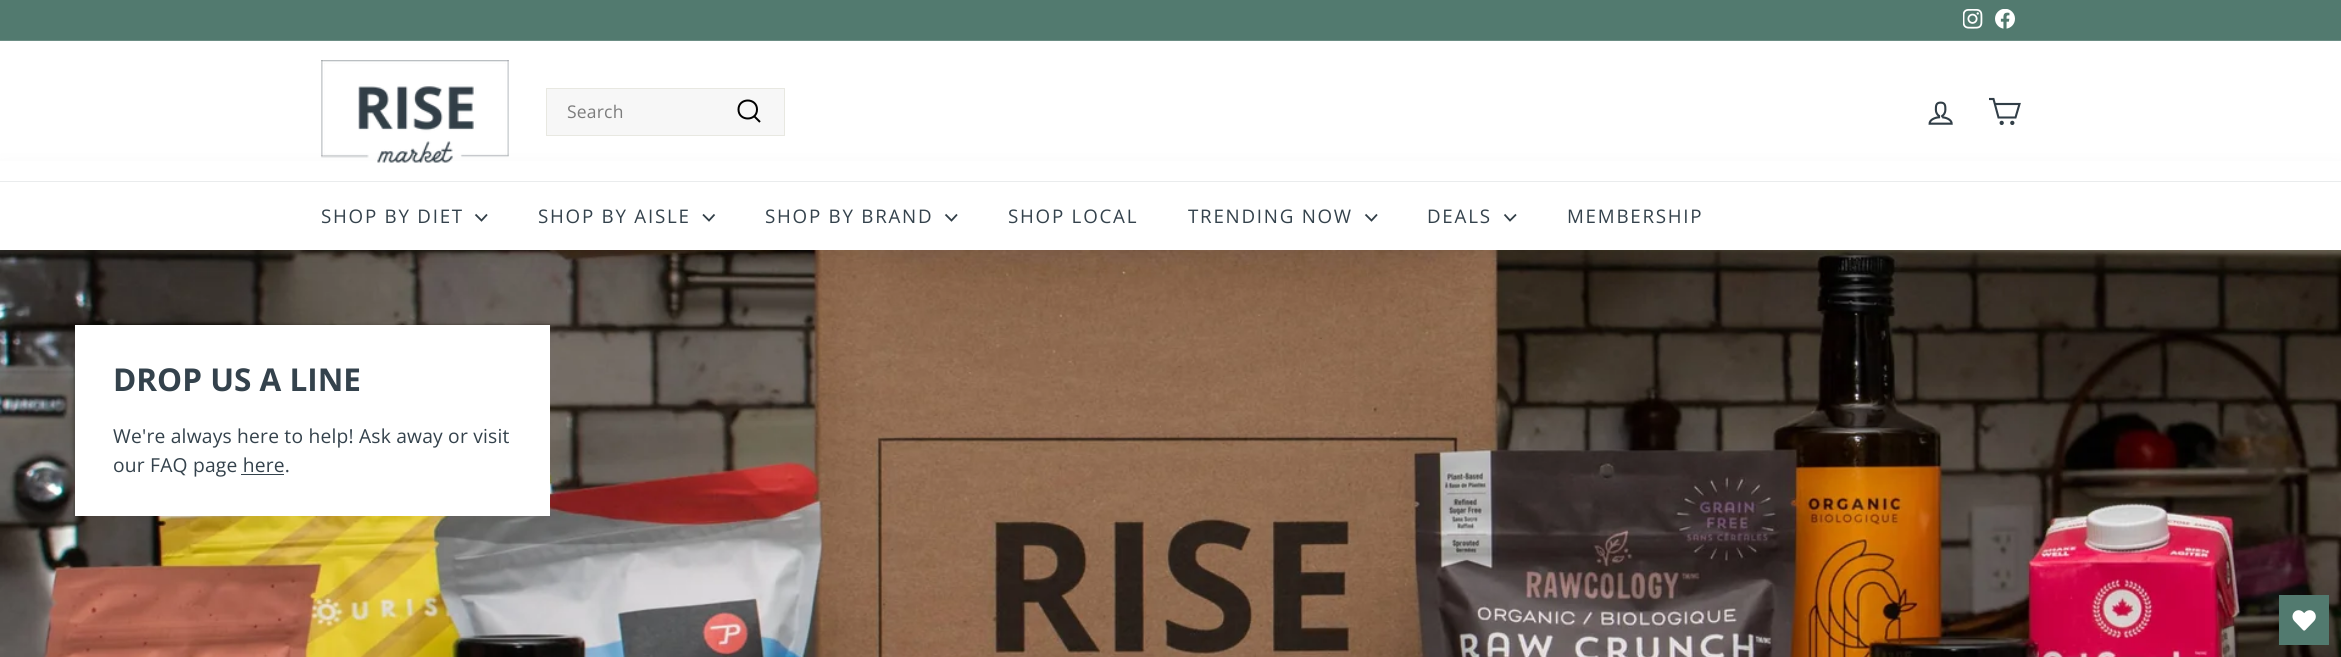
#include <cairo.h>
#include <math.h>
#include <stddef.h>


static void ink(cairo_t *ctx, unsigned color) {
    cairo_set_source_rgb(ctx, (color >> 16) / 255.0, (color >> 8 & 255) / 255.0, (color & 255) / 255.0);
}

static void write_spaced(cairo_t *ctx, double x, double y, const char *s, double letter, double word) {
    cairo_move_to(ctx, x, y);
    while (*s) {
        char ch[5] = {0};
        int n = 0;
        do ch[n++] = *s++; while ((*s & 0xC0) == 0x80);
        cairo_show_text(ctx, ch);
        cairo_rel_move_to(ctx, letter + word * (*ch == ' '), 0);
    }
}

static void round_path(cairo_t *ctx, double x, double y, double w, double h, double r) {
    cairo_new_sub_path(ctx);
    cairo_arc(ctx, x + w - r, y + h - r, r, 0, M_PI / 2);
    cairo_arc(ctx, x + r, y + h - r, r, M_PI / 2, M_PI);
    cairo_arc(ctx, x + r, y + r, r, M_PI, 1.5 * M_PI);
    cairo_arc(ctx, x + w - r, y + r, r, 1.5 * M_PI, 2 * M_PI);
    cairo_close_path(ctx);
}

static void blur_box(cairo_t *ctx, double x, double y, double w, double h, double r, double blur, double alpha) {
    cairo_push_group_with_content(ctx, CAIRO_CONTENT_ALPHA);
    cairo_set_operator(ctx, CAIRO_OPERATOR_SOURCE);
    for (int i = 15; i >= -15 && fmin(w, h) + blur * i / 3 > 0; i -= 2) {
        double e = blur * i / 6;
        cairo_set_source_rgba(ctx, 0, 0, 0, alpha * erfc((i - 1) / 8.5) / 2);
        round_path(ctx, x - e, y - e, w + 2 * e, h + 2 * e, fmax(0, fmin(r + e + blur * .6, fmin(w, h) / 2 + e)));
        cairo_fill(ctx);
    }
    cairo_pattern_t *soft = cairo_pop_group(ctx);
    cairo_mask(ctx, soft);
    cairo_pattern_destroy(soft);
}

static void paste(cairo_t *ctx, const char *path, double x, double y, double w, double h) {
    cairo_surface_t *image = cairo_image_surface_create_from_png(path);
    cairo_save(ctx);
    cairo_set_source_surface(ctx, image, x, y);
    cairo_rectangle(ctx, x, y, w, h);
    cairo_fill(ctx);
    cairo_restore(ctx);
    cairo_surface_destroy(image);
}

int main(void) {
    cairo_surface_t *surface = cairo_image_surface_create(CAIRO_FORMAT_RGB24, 2341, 657);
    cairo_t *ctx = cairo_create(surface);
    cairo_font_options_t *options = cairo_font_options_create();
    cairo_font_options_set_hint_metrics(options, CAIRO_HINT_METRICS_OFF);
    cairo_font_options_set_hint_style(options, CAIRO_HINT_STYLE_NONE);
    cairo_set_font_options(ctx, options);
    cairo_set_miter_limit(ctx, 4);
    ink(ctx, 0xFFFFFF);
    cairo_paint(ctx);
    ink(ctx, 0x527A6F);
    cairo_rectangle(ctx, 0, 0, 2341, 40);
    cairo_fill(ctx);
    paste(ctx, "media/1.png", 1963, 9, 20, 20);
    paste(ctx, "media/2.png", 1995, 9, 20, 20);
    ink(ctx, 0x6C8E85);
    cairo_rectangle(ctx, 0, 40, 2341, 1);
    cairo_fill(ctx);
    paste(ctx, "media/5.png", 0, 250, 2341, 407);
    ink(ctx, 0x000000);
    blur_box(ctx, 0, 181, 2341, 69, 0, 15.5, 0.1);
    ink(ctx, 0xFFFFFF);
    cairo_rectangle(ctx, 0, 161, 2341, 20);
    cairo_fill(ctx);
    paste(ctx, "media/3.png", 321, 60, 188, 103);
    ink(ctx, 0xF7F7F7);
    cairo_rectangle(ctx, 546.5, 88.5, 238, 47);
    cairo_fill_preserve(ctx);
    ink(ctx, 0xE8E8E1);
    cairo_set_line_width(ctx, 1);
    cairo_stroke(ctx);
    cairo_select_font_face(ctx, "Open Sans", CAIRO_FONT_SLANT_NORMAL, CAIRO_FONT_WEIGHT_NORMAL);
    cairo_set_font_size(ctx, 17.5);
    ink(ctx, 0x7C7C7C);
    write_spaced(ctx, 567, 118, "Search", 0.2, 0);
    cairo_new_path(ctx);
    cairo_move_to(ctx, 757, 109.5);
    cairo_curve_to(ctx, 757, 121.5, 738.5, 121.5, 738.5, 109.5);
    cairo_curve_to(ctx, 738.5, 97.5, 757, 97.5, 757, 109.5);
    cairo_close_path(ctx);
    cairo_move_to(ctx, 760, 122);
    cairo_line_to(ctx, 754, 116);
    ink(ctx, 0x000000);
    cairo_set_line_width(ctx, 2);
    cairo_stroke(ctx);
    paste(ctx, "media/4.png", 1928, 101, 25, 24);
    cairo_new_path(ctx);
    cairo_move_to(ctx, 1995, 104);
    cairo_line_to(ctx, 2019.5, 104);
    cairo_line_to(ctx, 2015.5, 117.5);
    cairo_line_to(ctx, 1998.5, 117.5);
    cairo_line_to(ctx, 1993.5, 99);
    cairo_line_to(ctx, 1989, 99);
    ink(ctx, 0x313E47);
    cairo_set_line_width(ctx, 2.1);
    cairo_stroke(ctx);
    cairo_arc(ctx, 2001.7, 122.9, 1.1, 0, 2 * M_PI);
    cairo_stroke(ctx);
    cairo_arc(ctx, 2012.3, 122.9, 1.1, 0, 2 * M_PI);
    cairo_stroke(ctx);
    ink(ctx, 0xFFFFFF);
    cairo_rectangle(ctx, 0, 182, 2341, 68);
    cairo_fill(ctx);
    ink(ctx, 0xEAECED);
    cairo_rectangle(ctx, 0, 181, 2341, 1);
    cairo_fill(ctx);
    cairo_set_font_size(ctx, 18.75);
    ink(ctx, 0x34424C);
    write_spaced(ctx, 321, 223, "SHOP BY DIET", 1.75, 0);
    cairo_new_path(ctx);
    cairo_move_to(ctx, 475.5, 214.5);
    cairo_line_to(ctx, 481.5, 220.5);
    cairo_line_to(ctx, 487, 214.5);
    ink(ctx, 0x313E47);
    cairo_set_line_width(ctx, 1.8);
    cairo_stroke(ctx);
    ink(ctx, 0x34424C);
    write_spaced(ctx, 538, 223, "SHOP BY AISLE", 1.75, 0);
    cairo_new_path(ctx);
    cairo_move_to(ctx, 703, 214.5);
    cairo_line_to(ctx, 709, 220.5);
    cairo_line_to(ctx, 714.5, 214.5);
    ink(ctx, 0x313E47);
    cairo_stroke(ctx);
    ink(ctx, 0x34424C);
    write_spaced(ctx, 765, 223, "SHOP BY BRAND", 1.75, 0);
    cairo_new_path(ctx);
    cairo_move_to(ctx, 945.5, 214.5);
    cairo_line_to(ctx, 951.5, 220.5);
    cairo_line_to(ctx, 957, 214.5);
    ink(ctx, 0x313E47);
    cairo_stroke(ctx);
    ink(ctx, 0x34424C);
    write_spaced(ctx, 1008, 223, "SHOP LOCAL", 1.75, 0);
    write_spaced(ctx, 1188, 223, "TRENDING NOW", 1.75, 0);
    cairo_new_path(ctx);
    cairo_move_to(ctx, 1365.5, 214.5);
    cairo_line_to(ctx, 1371.5, 220.5);
    cairo_line_to(ctx, 1377, 214.5);
    ink(ctx, 0x313E47);
    cairo_stroke(ctx);
    ink(ctx, 0x34424C);
    write_spaced(ctx, 1427, 223, "DEALS", 1.75, 0);
    cairo_new_path(ctx);
    cairo_move_to(ctx, 1504.5, 214.5);
    cairo_line_to(ctx, 1510, 220.5);
    cairo_line_to(ctx, 1516, 214.5);
    ink(ctx, 0x313E47);
    cairo_stroke(ctx);
    ink(ctx, 0x34424C);
    write_spaced(ctx, 1567, 223, "MEMBERSHIP", 1.75, 0);
    ink(ctx, 0xFFFFFF);
    cairo_rectangle(ctx, 75, 325, 475, 191);
    cairo_fill(ctx);
    cairo_select_font_face(ctx, "Open Sans", CAIRO_FONT_SLANT_NORMAL, CAIRO_FONT_WEIGHT_BOLD);
    cairo_set_font_size(ctx, 31.5);
    ink(ctx, 0x34424C);
    cairo_move_to(ctx, 113, 391);
    cairo_show_text(ctx, "DROP US A LINE");
    cairo_select_font_face(ctx, "Open Sans", CAIRO_FONT_SLANT_NORMAL, CAIRO_FONT_WEIGHT_NORMAL);
    cairo_set_font_size(ctx, 19.25);
    write_spaced(ctx, 113, 443, "We're always here to help! Ask away or visit", 0.2, 0);
    write_spaced(ctx, 113, 472, "our FAQ page here.", 0.2, 0);
    cairo_rectangle(ctx, 241, 474, 43, 1);
    cairo_fill(ctx);
    ink(ctx, 0x527A6F);
    cairo_rectangle(ctx, 2279, 595, 50, 50);
    cairo_fill(ctx);
    paste(ctx, "media/6.png", 2292, 610, 24, 21);
    cairo_surface_write_to_png(surface, "image.png");
    cairo_font_options_destroy(options);
    cairo_destroy(ctx);
    cairo_surface_destroy(surface);
    return 0;
}
